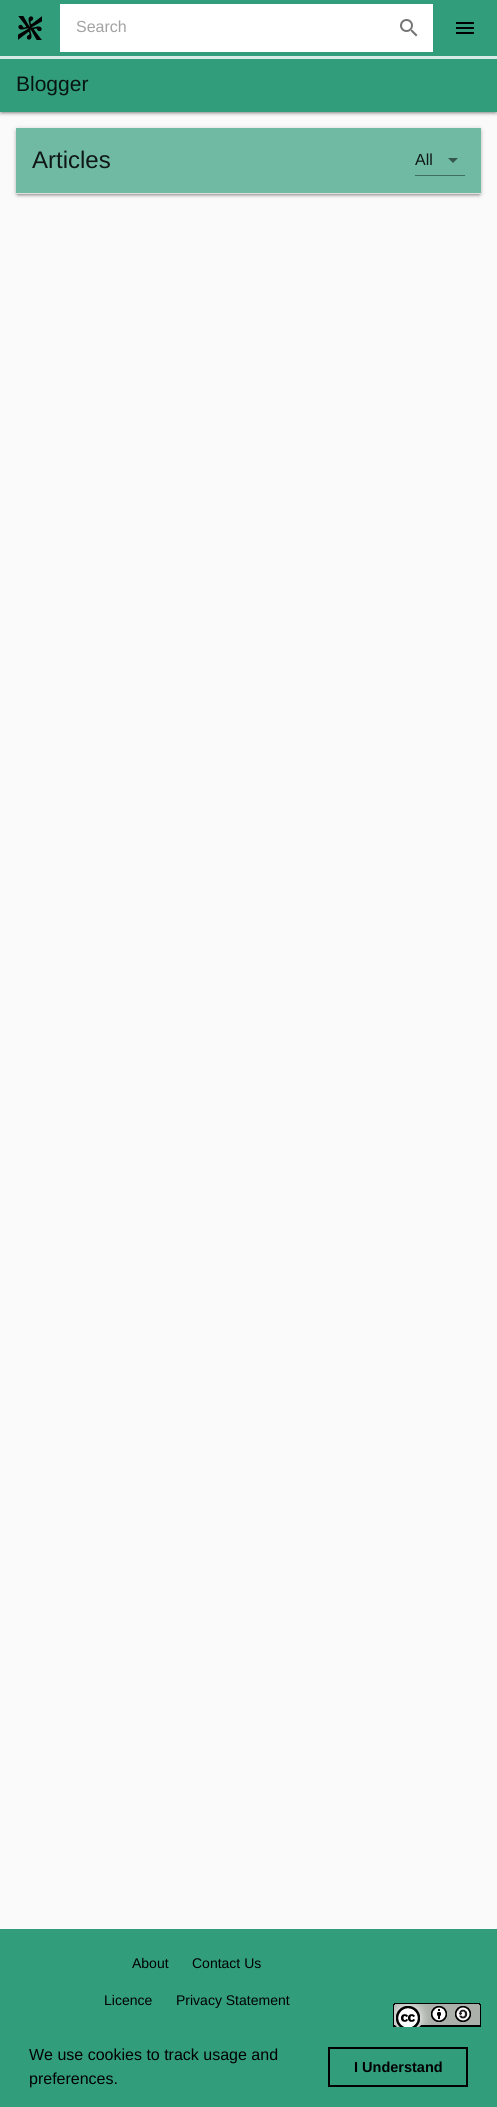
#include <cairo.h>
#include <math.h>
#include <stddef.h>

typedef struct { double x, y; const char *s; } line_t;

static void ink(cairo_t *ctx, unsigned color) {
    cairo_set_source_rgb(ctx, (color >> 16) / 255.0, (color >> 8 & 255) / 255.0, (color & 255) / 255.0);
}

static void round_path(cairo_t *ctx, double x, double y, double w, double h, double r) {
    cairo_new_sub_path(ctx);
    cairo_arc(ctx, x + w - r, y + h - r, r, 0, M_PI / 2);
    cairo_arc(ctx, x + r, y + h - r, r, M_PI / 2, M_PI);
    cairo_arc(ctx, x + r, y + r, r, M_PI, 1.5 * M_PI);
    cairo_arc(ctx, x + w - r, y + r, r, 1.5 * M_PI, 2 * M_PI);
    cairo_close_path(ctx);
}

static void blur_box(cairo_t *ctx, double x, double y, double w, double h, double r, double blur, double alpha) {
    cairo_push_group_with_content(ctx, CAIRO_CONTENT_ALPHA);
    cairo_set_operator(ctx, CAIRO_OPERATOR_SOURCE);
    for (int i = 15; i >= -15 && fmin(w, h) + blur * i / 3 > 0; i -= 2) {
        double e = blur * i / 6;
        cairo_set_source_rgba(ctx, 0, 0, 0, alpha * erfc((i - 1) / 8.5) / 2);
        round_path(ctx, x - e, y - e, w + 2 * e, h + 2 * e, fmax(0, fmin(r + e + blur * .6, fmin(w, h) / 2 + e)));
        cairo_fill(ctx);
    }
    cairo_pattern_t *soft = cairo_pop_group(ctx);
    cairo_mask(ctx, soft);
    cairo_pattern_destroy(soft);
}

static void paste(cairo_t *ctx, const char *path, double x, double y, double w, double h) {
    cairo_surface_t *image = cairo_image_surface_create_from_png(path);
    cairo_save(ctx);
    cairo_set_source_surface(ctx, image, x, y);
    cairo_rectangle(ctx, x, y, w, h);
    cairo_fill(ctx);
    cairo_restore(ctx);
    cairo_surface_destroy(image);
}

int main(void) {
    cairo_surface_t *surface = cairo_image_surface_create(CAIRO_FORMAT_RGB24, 497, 2107);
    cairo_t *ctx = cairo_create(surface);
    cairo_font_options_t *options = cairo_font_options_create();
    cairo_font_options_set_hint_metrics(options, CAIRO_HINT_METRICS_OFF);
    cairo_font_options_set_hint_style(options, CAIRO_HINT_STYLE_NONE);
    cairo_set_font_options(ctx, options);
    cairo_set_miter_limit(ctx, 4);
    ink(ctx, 0xFAFAFA);
    cairo_paint(ctx);
    ink(ctx, 0x000000);
    blur_box(ctx, 2, 61, 493, 52, 0, 0.5, 0.12);
    blur_box(ctx, 0, 58, 497, 56, 0, 1, 0.14);
    blur_box(ctx, 0, 57, 497, 56, 0, 2.5, 0.2);
    ink(ctx, 0xD6EBE5);
    cairo_set_fill_rule(ctx, CAIRO_FILL_RULE_EVEN_ODD);
    cairo_new_path(ctx);
    cairo_move_to(ctx, -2, -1);
    cairo_line_to(ctx, -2, 59);
    cairo_line_to(ctx, 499, 59);
    cairo_line_to(ctx, 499, -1);
    cairo_close_path(ctx);
    cairo_move_to(ctx, 0, 0);
    cairo_line_to(ctx, 0, 56);
    cairo_line_to(ctx, 497, 56);
    cairo_line_to(ctx, 497, 0);
    cairo_close_path(ctx);
    cairo_fill(ctx);
    ink(ctx, 0x329D7B);
    cairo_rectangle(ctx, 0, 0, 497, 56);
    cairo_fill(ctx);
    paste(ctx, "media/1.png", 18, 16, 24, 24);
    ink(ctx, 0xFFFFFF);
    cairo_rectangle(ctx, 60, 4, 373, 48);
    cairo_fill(ctx);
    cairo_select_font_face(ctx, "Liberation Sans", CAIRO_FONT_SLANT_NORMAL, CAIRO_FONT_WEIGHT_NORMAL);
    cairo_set_font_size(ctx, 16);
    ink(ctx, 0xA2A2A2);
    cairo_move_to(ctx, 76, 32);
    cairo_show_text(ctx, "Search");
    paste(ctx, "media/2.png", 400, 19, 18, 18);
    paste(ctx, "media/3.png", 456, 22, 18, 12);
    ink(ctx, 0x329D7B);
    cairo_rectangle(ctx, 0, 59, 497, 53);
    cairo_fill(ctx);
    cairo_set_font_size(ctx, 21);
    ink(ctx, 0x071410);
    cairo_move_to(ctx, 16, 91);
    cairo_show_text(ctx, "Blogger");
    ink(ctx, 0x000000);
    blur_box(ctx, 18, 133, 461, 62, 0, 0.5, 0.12);
    blur_box(ctx, 16, 130, 465, 66, 2, 1, 0.14);
    blur_box(ctx, 16, 129, 465, 66, 2, 2.5, 0.2);
    ink(ctx, 0x70BAA3);
    cairo_rectangle(ctx, 16, 128, 465, 65);
    cairo_fill(ctx);
    ink(ctx, 0xDEDEDE);
    cairo_rectangle(ctx, 16, 193, 465, 1);
    cairo_fill(ctx);
    cairo_set_font_size(ctx, 24);
    ink(ctx, 0x0F1815);
    cairo_move_to(ctx, 32, 168);
    cairo_show_text(ctx, "Articles");
    cairo_set_font_size(ctx, 16);
    cairo_move_to(ctx, 415, 165);
    cairo_show_text(ctx, "All");
    ink(ctx, 0x34564B);
    cairo_set_fill_rule(ctx, CAIRO_FILL_RULE_WINDING);
    cairo_new_path(ctx);
    cairo_move_to(ctx, 448, 158);
    cairo_line_to(ctx, 453, 163);
    cairo_line_to(ctx, 458, 158);
    cairo_close_path(ctx);
    cairo_fill(ctx);
    ink(ctx, 0x416C5F);
    cairo_rectangle(ctx, 415, 175, 50, 1);
    cairo_fill(ctx);
    ink(ctx, 0x329D7B);
    cairo_rectangle(ctx, 0, 1929, 497, 178);
    cairo_fill(ctx);
    cairo_set_font_size(ctx, 14);
    ink(ctx, 0x000000);
    {
        static const line_t items[] = {
            {132, 1968, "About"},
            {192, 1968, "Contact Us"},
            {104, 2005, "Licence"},
            {176, 2005, "Privacy Statement"},
        };
        for (size_t i = 0; i < sizeof items / sizeof *items; i++) {
            cairo_move_to(ctx, items[i].x, items[i].y);
            cairo_show_text(ctx, items[i].s);
        }
    }
    paste(ctx, "media/4.png", 393, 2003, 88, 24);
    cairo_set_font_size(ctx, 16);
    cairo_move_to(ctx, 29, 2060);
    cairo_show_text(ctx, "We use cookies to track usage and");
    cairo_move_to(ctx, 29, 2084);
    cairo_show_text(ctx, "preferences.");
    cairo_rectangle(ctx, 329, 2048, 138, 38);
    cairo_stroke(ctx);
    cairo_select_font_face(ctx, "Liberation Sans", CAIRO_FONT_SLANT_NORMAL, CAIRO_FONT_WEIGHT_BOLD);
    cairo_set_font_size(ctx, 14.5);
    cairo_move_to(ctx, 354, 2072);
    cairo_show_text(ctx, "I Understand");
    cairo_surface_write_to_png(surface, "image.png");
    cairo_font_options_destroy(options);
    cairo_destroy(ctx);
    cairo_surface_destroy(surface);
    return 0;
}
